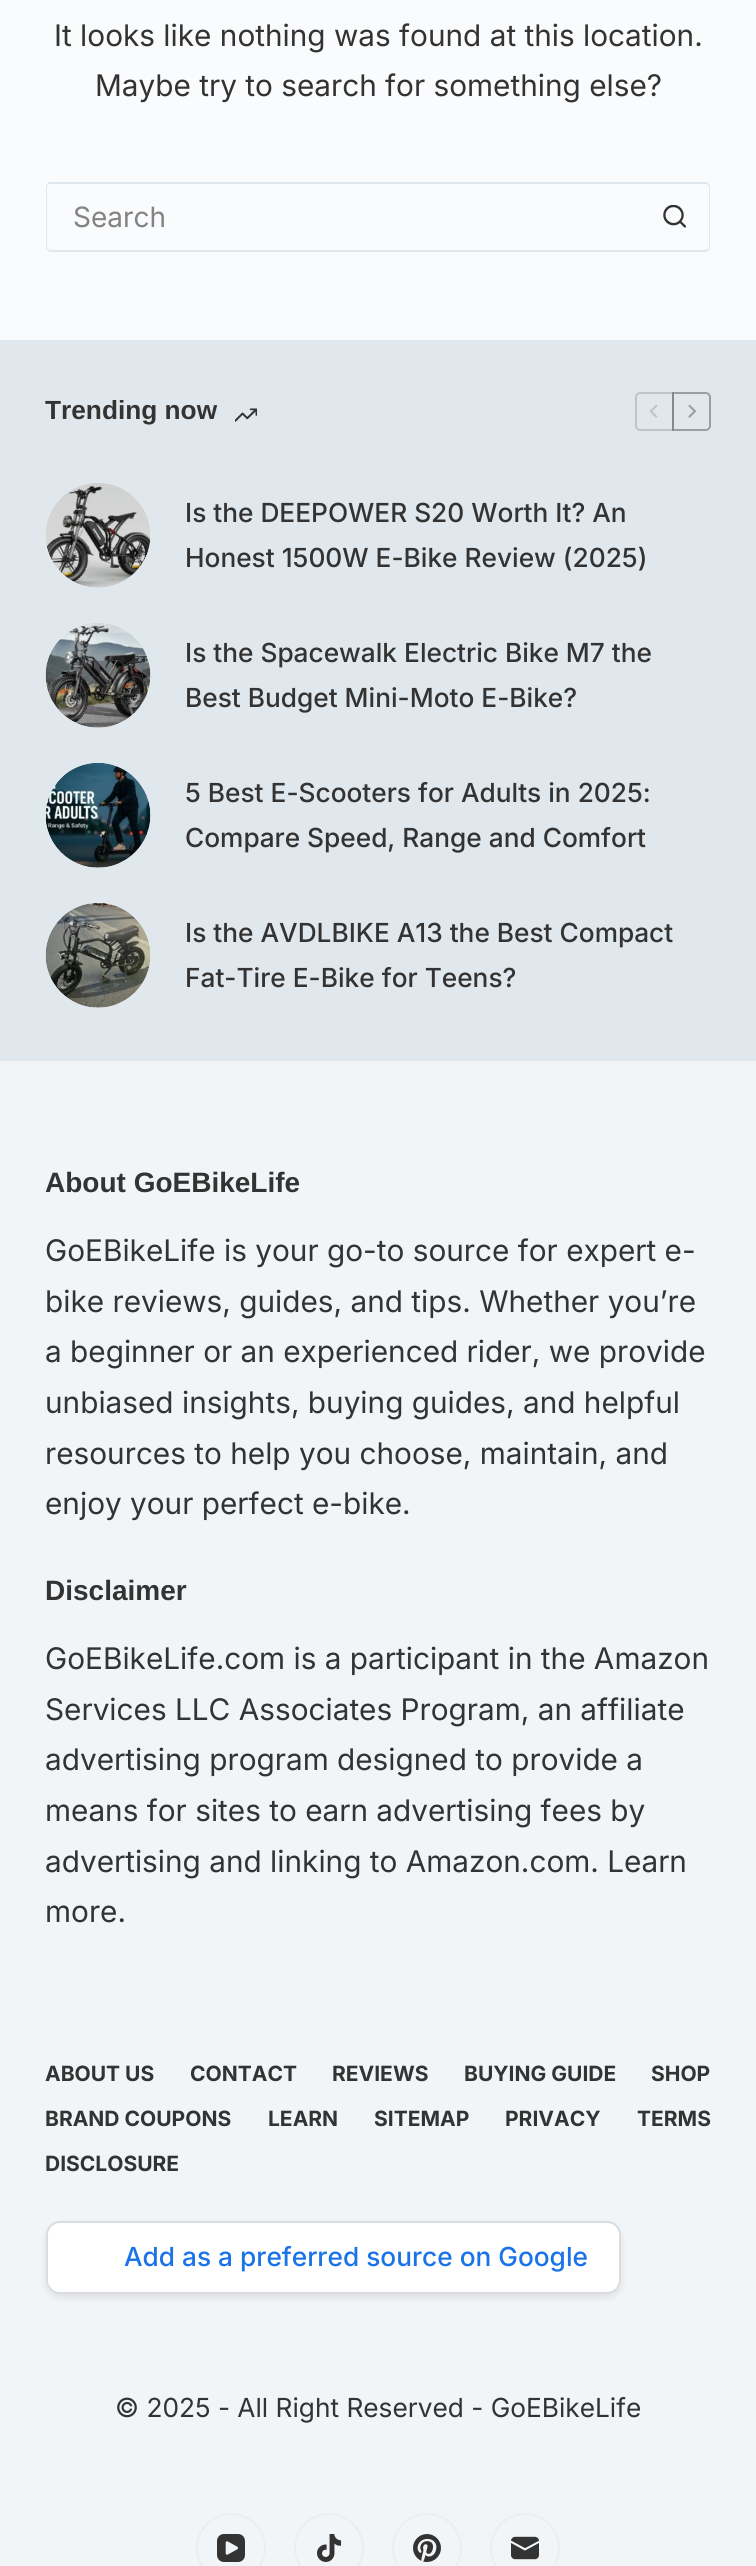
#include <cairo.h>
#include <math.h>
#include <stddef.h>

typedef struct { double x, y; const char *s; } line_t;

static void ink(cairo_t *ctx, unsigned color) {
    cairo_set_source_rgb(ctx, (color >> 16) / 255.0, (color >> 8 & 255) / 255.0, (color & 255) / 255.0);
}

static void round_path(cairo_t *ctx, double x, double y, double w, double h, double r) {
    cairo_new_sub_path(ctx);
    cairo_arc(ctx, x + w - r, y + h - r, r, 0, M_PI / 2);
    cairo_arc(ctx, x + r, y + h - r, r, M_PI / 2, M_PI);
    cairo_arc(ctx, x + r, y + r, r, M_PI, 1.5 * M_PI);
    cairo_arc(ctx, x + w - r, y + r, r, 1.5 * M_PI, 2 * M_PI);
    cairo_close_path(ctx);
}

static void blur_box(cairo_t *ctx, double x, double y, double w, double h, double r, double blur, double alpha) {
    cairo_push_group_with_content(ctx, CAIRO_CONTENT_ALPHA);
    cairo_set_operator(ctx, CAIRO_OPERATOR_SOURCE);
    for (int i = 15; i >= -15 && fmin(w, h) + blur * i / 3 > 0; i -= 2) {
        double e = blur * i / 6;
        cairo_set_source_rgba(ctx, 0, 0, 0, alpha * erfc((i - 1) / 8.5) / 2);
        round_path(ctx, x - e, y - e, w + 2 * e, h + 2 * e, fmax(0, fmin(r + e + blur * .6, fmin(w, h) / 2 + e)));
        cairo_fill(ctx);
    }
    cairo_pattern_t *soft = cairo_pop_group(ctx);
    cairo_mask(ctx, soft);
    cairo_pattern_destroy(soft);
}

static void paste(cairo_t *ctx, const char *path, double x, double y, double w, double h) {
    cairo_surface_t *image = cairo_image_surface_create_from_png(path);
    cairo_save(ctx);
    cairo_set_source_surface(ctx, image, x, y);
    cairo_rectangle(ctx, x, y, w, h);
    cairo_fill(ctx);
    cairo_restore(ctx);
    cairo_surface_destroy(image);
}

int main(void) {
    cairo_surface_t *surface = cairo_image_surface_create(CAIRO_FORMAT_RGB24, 756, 2566);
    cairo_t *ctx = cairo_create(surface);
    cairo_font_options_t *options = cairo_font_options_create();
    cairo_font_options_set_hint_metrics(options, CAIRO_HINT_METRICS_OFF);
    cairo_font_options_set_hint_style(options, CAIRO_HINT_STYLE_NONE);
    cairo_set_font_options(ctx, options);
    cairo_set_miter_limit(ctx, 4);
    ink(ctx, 0xFAFBFC);
    cairo_paint(ctx);
    cairo_select_font_face(ctx, "Inter", CAIRO_FONT_SLANT_NORMAL, CAIRO_FONT_WEIGHT_NORMAL);
    cairo_set_font_size(ctx, 29.75);
    ink(ctx, 0x333333);
    cairo_move_to(ctx, 54, 46);
    cairo_show_text(ctx, "It looks like nothing was found at this location.");
    cairo_move_to(ctx, 95, 96);
    cairo_show_text(ctx, "Maybe try to search for something else?");
    ink(ctx, 0xE1E8ED);
    cairo_set_fill_rule(ctx, CAIRO_FILL_RULE_EVEN_ODD);
    cairo_new_path(ctx);
    cairo_move_to(ctx, 51, 182);
    cairo_line_to(ctx, 640, 182);
    cairo_line_to(ctx, 640, 252);
    cairo_line_to(ctx, 51, 252);
    cairo_curve_to(ctx, 48, 252, 46, 250, 46, 247);
    cairo_line_to(ctx, 46, 187);
    cairo_curve_to(ctx, 46, 184, 48, 182, 51, 182);
    cairo_close_path(ctx);
    cairo_move_to(ctx, 51, 184);
    cairo_line_to(ctx, 640, 184);
    cairo_line_to(ctx, 640, 250);
    cairo_line_to(ctx, 51, 250);
    cairo_curve_to(ctx, 49, 250, 47, 249, 47, 247);
    cairo_line_to(ctx, 47, 187);
    cairo_curve_to(ctx, 47, 185, 49, 184, 51, 184);
    cairo_close_path(ctx);
    cairo_fill(ctx);
    cairo_set_font_size(ctx, 28);
    ink(ctx, 0x838383);
    cairo_move_to(ctx, 73, 227);
    cairo_show_text(ctx, "Search");
    ink(ctx, 0xE1E8ED);
    cairo_new_path(ctx);
    cairo_move_to(ctx, 640, 182);
    cairo_line_to(ctx, 705, 182);
    cairo_curve_to(ctx, 708, 182, 710, 184, 710, 187);
    cairo_line_to(ctx, 710, 247);
    cairo_curve_to(ctx, 710, 250, 708, 252, 705, 252);
    cairo_line_to(ctx, 640, 252);
    cairo_close_path(ctx);
    cairo_move_to(ctx, 640, 184);
    cairo_line_to(ctx, 705, 184);
    cairo_curve_to(ctx, 707, 184, 709, 185, 709, 187);
    cairo_line_to(ctx, 709, 247);
    cairo_curve_to(ctx, 709, 249, 707, 250, 705, 250);
    cairo_line_to(ctx, 640, 250);
    cairo_close_path(ctx);
    cairo_fill(ctx);
    paste(ctx, "media/1.png", 663, 205, 23, 23);
    cairo_rectangle(ctx, 0, 340, 756, 721);
    cairo_fill(ctx);
    cairo_select_font_face(ctx, "Liberation Sans", CAIRO_FONT_SLANT_NORMAL, CAIRO_FONT_WEIGHT_BOLD);
    cairo_set_font_size(ctx, 26.25);
    ink(ctx, 0x333333);
    cairo_move_to(ctx, 45, 419);
    cairo_show_text(ctx, "Trending now");
    paste(ctx, "media/2.png", 235, 408, 22, 14);
    cairo_new_path(ctx);
    cairo_move_to(ctx, 640, 393);
    cairo_line_to(ctx, 673, 393);
    cairo_line_to(ctx, 673, 430);
    cairo_line_to(ctx, 640, 430);
    cairo_curve_to(ctx, 638, 430, 636, 428, 636, 426);
    cairo_line_to(ctx, 636, 397);
    cairo_curve_to(ctx, 636, 395, 638, 393, 640, 393);
    cairo_close_path(ctx);
    ink(ctx, 0xBEC4C8);
    cairo_stroke(ctx);
    paste(ctx, "media/3.png", 649, 404, 9, 14);
    cairo_new_path(ctx);
    cairo_move_to(ctx, 673, 393);
    cairo_line_to(ctx, 706, 393);
    cairo_curve_to(ctx, 708, 393, 710, 395, 710, 397);
    cairo_line_to(ctx, 710, 426);
    cairo_curve_to(ctx, 710, 428, 708, 430, 706, 430);
    cairo_line_to(ctx, 673, 430);
    cairo_close_path(ctx);
    cairo_set_source_rgba(ctx, 0.2, 0.2, 0.2, 0.4);
    cairo_stroke(ctx);
    paste(ctx, "media/4.png", 688, 404, 9, 14);
    paste(ctx, "media/5.png", 46, 483, 105, 105);
    cairo_select_font_face(ctx, "Inter Medium", CAIRO_FONT_SLANT_NORMAL, CAIRO_FONT_WEIGHT_NORMAL);
    ink(ctx, 0x333333);
    cairo_move_to(ctx, 185, 522);
    cairo_show_text(ctx, "Is the DEEPOWER S20 Worth It? An");
    cairo_move_to(ctx, 185, 567);
    cairo_show_text(ctx, "Honest 1500W E-Bike Review (2025)");
    paste(ctx, "media/6.png", 45, 623, 106, 105);
    cairo_move_to(ctx, 185, 662);
    cairo_show_text(ctx, "Is the Spacewalk Electric Bike M7 the");
    cairo_move_to(ctx, 185, 707);
    cairo_show_text(ctx, "Best Budget Mini-Moto E-Bike?");
    paste(ctx, "media/7.png", 45, 763, 106, 105);
    cairo_move_to(ctx, 185, 802);
    cairo_show_text(ctx, "5 Best E-Scooters for Adults in 2025:");
    cairo_move_to(ctx, 185, 847);
    cairo_show_text(ctx, "Compare Speed, Range and Comfort");
    paste(ctx, "media/8.png", 45, 903, 106, 105);
    cairo_move_to(ctx, 185, 942);
    cairo_show_text(ctx, "Is the AVDLBIKE A13 the Best Compact");
    cairo_move_to(ctx, 185, 987);
    cairo_show_text(ctx, "Fat-Tire E-Bike for Teens?");
    ink(ctx, 0xF2F5F7);
    cairo_rectangle(ctx, 0, 1061, 756, 1505);
    cairo_fill(ctx);
    cairo_select_font_face(ctx, "Liberation Sans", CAIRO_FONT_SLANT_NORMAL, CAIRO_FONT_WEIGHT_BOLD);
    cairo_set_font_size(ctx, 28);
    ink(ctx, 0x333333);
    cairo_move_to(ctx, 45, 1192);
    cairo_show_text(ctx, "About GoEBikeLife");
    cairo_select_font_face(ctx, "Inter", CAIRO_FONT_SLANT_NORMAL, CAIRO_FONT_WEIGHT_NORMAL);
    cairo_set_font_size(ctx, 29.75);
    {
        static const line_t items[] = {
            {45, 1261, "GoEBikeLife is your go-to source for expert e-"},
            {45, 1312, "bike reviews, guides, and tips. Whether you’re"},
            {45, 1362, "a beginner or an experienced rider, we provide"},
            {45, 1413, "unbiased insights, buying guides, and helpful"},
            {45, 1464, "resources to help you choose, maintain, and"},
            {45, 1514, "enjoy your perfect e-bike."},
        };
        for (size_t i = 0; i < sizeof items / sizeof *items; i++) {
            cairo_move_to(ctx, items[i].x, items[i].y);
            cairo_show_text(ctx, items[i].s);
        }
    }
    cairo_select_font_face(ctx, "Liberation Sans", CAIRO_FONT_SLANT_NORMAL, CAIRO_FONT_WEIGHT_BOLD);
    cairo_set_font_size(ctx, 28);
    cairo_move_to(ctx, 45, 1600);
    cairo_show_text(ctx, "Disclaimer");
    cairo_select_font_face(ctx, "Inter", CAIRO_FONT_SLANT_NORMAL, CAIRO_FONT_WEIGHT_NORMAL);
    cairo_set_font_size(ctx, 29.75);
    {
        static const line_t items[] = {
            {45, 1669, "GoEBikeLife.com is a participant in the Amazon"},
            {45, 1720, "Services LLC Associates Program, an affiliate"},
            {45, 1770, "advertising program designed to provide a"},
            {45, 1821, "means for sites to earn advertising fees by"},
            {45, 1872, "advertising and linking to Amazon.com. Learn"},
            {45, 1922, "more."},
        };
        for (size_t i = 0; i < sizeof items / sizeof *items; i++) {
            cairo_move_to(ctx, items[i].x, items[i].y);
            cairo_show_text(ctx, items[i].s);
        }
    }
    cairo_select_font_face(ctx, "Inter", CAIRO_FONT_SLANT_NORMAL, CAIRO_FONT_WEIGHT_BOLD);
    cairo_set_font_size(ctx, 21);
    {
        static const line_t items[] = {
            {45, 2081, "ABOUT US"},
            {190, 2081, "CONTACT"},
            {332, 2081, "REVIEWS"},
            {464, 2081, "BUYING GUIDE"},
            {651, 2081, "SHOP"},
            {45, 2126, "BRAND COUPONS"},
            {268, 2126, "LEARN"},
            {374, 2126, "SITEMAP"},
            {505, 2126, "PRIVACY"},
            {637, 2126, "TERMS"},
            {45, 2171, "DISCLOSURE"},
        };
        for (size_t i = 0; i < sizeof items / sizeof *items; i++) {
            cairo_move_to(ctx, items[i].x, items[i].y);
            cairo_show_text(ctx, items[i].s);
        }
    }
    ink(ctx, 0x000000);
    blur_box(ctx, 46, 2224, 575, 74, 14, 3.5, 0.08);
    ink(ctx, 0xFFFFFF);
    round_path(ctx, 47, 2222, 573, 71, 13);
    cairo_fill_preserve(ctx);
    ink(ctx, 0xDADCE0);
    cairo_stroke(ctx);
    cairo_select_font_face(ctx, "Inter Medium", CAIRO_FONT_SLANT_NORMAL, CAIRO_FONT_WEIGHT_NORMAL);
    cairo_set_font_size(ctx, 26.25);
    ink(ctx, 0x1A73E8);
    cairo_move_to(ctx, 124, 2266);
    cairo_show_text(ctx, "Add as a preferred source on Google");
    cairo_select_font_face(ctx, "Inter", CAIRO_FONT_SLANT_NORMAL, CAIRO_FONT_WEIGHT_NORMAL);
    ink(ctx, 0x333333);
    cairo_move_to(ctx, 115, 2417);
    cairo_show_text(ctx, "© 2025 - All Right Reserved - GoEBikeLife");
    cairo_new_path(ctx);
    cairo_arc(ctx, 231, 2548, 34, 0, 2 * M_PI);
    ink(ctx, 0xEBEEF1);
    cairo_stroke(ctx);
    paste(ctx, "media/9.png", 217, 2534, 28, 28);
    cairo_arc(ctx, 329, 2548, 34, 0, 2 * M_PI);
    cairo_stroke(ctx);
    paste(ctx, "media/10.png", 317, 2534, 25, 28);
    cairo_arc(ctx, 427, 2548, 34, 0, 2 * M_PI);
    cairo_stroke(ctx);
    paste(ctx, "media/11.png", 413, 2534, 28, 28);
    cairo_arc(ctx, 525, 2548, 34, 0, 2 * M_PI);
    cairo_stroke(ctx);
    paste(ctx, "media/12.png", 511, 2536, 28, 24);
    cairo_surface_write_to_png(surface, "image.png");
    cairo_font_options_destroy(options);
    cairo_destroy(ctx);
    cairo_surface_destroy(surface);
    return 0;
}
